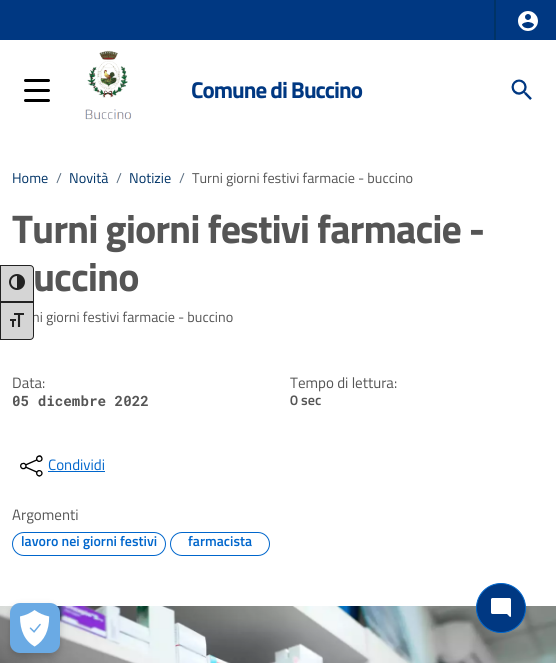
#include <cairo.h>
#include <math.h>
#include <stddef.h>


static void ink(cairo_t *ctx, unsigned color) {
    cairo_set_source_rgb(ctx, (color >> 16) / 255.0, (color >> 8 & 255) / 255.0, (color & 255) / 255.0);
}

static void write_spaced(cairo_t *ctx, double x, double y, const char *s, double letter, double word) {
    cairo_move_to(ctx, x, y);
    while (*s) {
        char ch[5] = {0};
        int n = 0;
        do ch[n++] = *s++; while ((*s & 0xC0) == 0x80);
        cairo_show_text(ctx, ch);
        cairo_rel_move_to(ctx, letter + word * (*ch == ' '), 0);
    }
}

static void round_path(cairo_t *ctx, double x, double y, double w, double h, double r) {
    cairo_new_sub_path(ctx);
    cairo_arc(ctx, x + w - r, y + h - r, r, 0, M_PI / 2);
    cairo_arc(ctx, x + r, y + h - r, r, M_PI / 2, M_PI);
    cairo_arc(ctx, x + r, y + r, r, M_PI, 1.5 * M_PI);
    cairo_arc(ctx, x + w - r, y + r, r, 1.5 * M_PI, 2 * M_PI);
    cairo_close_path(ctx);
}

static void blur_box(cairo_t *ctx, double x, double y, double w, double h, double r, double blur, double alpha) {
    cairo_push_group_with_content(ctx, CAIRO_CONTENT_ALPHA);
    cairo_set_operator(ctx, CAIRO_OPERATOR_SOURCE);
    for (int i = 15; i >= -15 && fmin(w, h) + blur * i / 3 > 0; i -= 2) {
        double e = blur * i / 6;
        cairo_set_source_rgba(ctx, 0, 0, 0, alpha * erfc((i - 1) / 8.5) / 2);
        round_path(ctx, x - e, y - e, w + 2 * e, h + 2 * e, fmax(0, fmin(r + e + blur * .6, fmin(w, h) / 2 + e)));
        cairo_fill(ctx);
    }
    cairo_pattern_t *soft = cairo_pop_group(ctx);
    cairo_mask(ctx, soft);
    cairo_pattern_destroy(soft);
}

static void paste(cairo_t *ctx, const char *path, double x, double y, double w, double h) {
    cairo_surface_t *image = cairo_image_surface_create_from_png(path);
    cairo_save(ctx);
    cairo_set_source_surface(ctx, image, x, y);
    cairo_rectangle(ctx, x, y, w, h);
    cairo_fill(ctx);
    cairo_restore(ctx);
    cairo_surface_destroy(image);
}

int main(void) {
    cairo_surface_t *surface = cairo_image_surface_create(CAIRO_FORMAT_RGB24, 556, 663);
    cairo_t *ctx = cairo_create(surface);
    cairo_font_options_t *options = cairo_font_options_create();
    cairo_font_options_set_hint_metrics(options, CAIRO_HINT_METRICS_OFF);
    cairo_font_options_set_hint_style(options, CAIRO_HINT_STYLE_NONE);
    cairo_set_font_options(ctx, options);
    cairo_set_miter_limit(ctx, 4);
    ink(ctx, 0xFFFFFF);
    cairo_paint(ctx);
    ink(ctx, 0x003882);
    cairo_rectangle(ctx, 0, 0, 556, 40);
    cairo_fill(ctx);
    ink(ctx, 0x003366);
    cairo_rectangle(ctx, 494, 0, 2, 40);
    cairo_fill(ctx);
    paste(ctx, "media/1.png", 518, 11, 20, 20);
    ink(ctx, 0x000000);
    round_path(ctx, 24, 89, 26, 3, 1.5);
    cairo_fill(ctx);
    round_path(ctx, 24, 79, 26, 3, 1.5);
    cairo_fill(ctx);
    round_path(ctx, 24, 99, 26, 3, 1.5);
    cairo_fill(ctx);
    paste(ctx, "media/2.png", 85, 50, 47, 70);
    cairo_select_font_face(ctx, "Titillium Web", CAIRO_FONT_SLANT_NORMAL, CAIRO_FONT_WEIGHT_BOLD);
    cairo_set_font_size(ctx, 23);
    ink(ctx, 0x003882);
    write_spaced(ctx, 191, 98, "Comune di Buccino", -1, 0);
    paste(ctx, "media/3.png", 511, 79, 21, 21);
    cairo_select_font_face(ctx, "Titillium Web", CAIRO_FONT_SLANT_NORMAL, CAIRO_FONT_WEIGHT_NORMAL);
    cairo_set_font_size(ctx, 14.25);
    ink(ctx, 0x003366);
    cairo_move_to(ctx, 12, 183);
    cairo_show_text(ctx, "Home");
    ink(ctx, 0x5D7083);
    cairo_move_to(ctx, 56, 183);
    cairo_show_text(ctx, "/");
    ink(ctx, 0x003366);
    cairo_move_to(ctx, 69, 183);
    cairo_show_text(ctx, "Novità");
    ink(ctx, 0x5D7083);
    cairo_move_to(ctx, 116, 183);
    cairo_show_text(ctx, "/");
    ink(ctx, 0x003366);
    cairo_move_to(ctx, 129, 183);
    cairo_show_text(ctx, "Notizie");
    ink(ctx, 0x5D7083);
    cairo_move_to(ctx, 179, 183);
    cairo_show_text(ctx, "/");
    ink(ctx, 0x555555);
    cairo_move_to(ctx, 192, 183);
    cairo_show_text(ctx, "Turni giorni festivi farmacie - buccino");
    cairo_select_font_face(ctx, "Titillium Web", CAIRO_FONT_SLANT_NORMAL, CAIRO_FONT_WEIGHT_BOLD);
    cairo_set_font_size(ctx, 40);
    write_spaced(ctx, 12, 243, "Turni giorni festivi farmacie -", -1, 0);
    write_spaced(ctx, 33, 291, "uccino", -1, 0);
    cairo_select_font_face(ctx, "Titillium Web", CAIRO_FONT_SLANT_NORMAL, CAIRO_FONT_WEIGHT_NORMAL);
    cairo_set_font_size(ctx, 14.25);
    cairo_move_to(ctx, 32, 322);
    cairo_show_text(ctx, "ni giorni festivi farmacie - buccino");
    cairo_set_font_size(ctx, 15);
    cairo_move_to(ctx, 12, 388);
    cairo_show_text(ctx, "Data:");
    cairo_select_font_face(ctx, "Roboto Mono", CAIRO_FONT_SLANT_NORMAL, CAIRO_FONT_WEIGHT_BOLD);
    cairo_set_font_size(ctx, 14.25);
    cairo_move_to(ctx, 12, 406);
    cairo_show_text(ctx, "05 dicembre 2022");
    cairo_select_font_face(ctx, "Titillium Web", CAIRO_FONT_SLANT_NORMAL, CAIRO_FONT_WEIGHT_NORMAL);
    cairo_set_font_size(ctx, 15);
    cairo_move_to(ctx, 290, 388);
    cairo_show_text(ctx, "Tempo di lettura:");
    cairo_select_font_face(ctx, "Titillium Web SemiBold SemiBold", CAIRO_FONT_SLANT_NORMAL, CAIRO_FONT_WEIGHT_NORMAL);
    cairo_set_font_size(ctx, 14.25);
    cairo_move_to(ctx, 290, 405);
    cairo_show_text(ctx, "0 sec");
    paste(ctx, "media/4.png", 20, 455, 23, 22);
    cairo_select_font_face(ctx, "Titillium Web", CAIRO_FONT_SLANT_NORMAL, CAIRO_FONT_WEIGHT_NORMAL);
    cairo_set_font_size(ctx, 15);
    ink(ctx, 0x0066CC);
    cairo_move_to(ctx, 48, 470);
    cairo_show_text(ctx, "Condividi");
    cairo_rectangle(ctx, 48, 471, 57, 1);
    cairo_fill(ctx);
    ink(ctx, 0x555555);
    cairo_move_to(ctx, 12, 520);
    cairo_show_text(ctx, "Argomenti");
    round_path(ctx, 12.5, 532.5, 153, 23, 11.5);
    ink(ctx, 0x0066CC);
    cairo_set_line_width(ctx, 1);
    cairo_stroke(ctx);
    cairo_select_font_face(ctx, "Titillium Web SemiBold SemiBold", CAIRO_FONT_SLANT_NORMAL, CAIRO_FONT_WEIGHT_NORMAL);
    cairo_set_font_size(ctx, 14);
    cairo_move_to(ctx, 21, 546);
    cairo_show_text(ctx, "lavoro nei giorni festivi");
    round_path(ctx, 170.5, 532.5, 99, 23, 11.5);
    cairo_stroke(ctx);
    cairo_move_to(ctx, 188, 546);
    cairo_show_text(ctx, "farmacista");
    paste(ctx, "media/5.png", 0, 606, 556, 57);
    ink(ctx, 0x003882);
    cairo_arc(ctx, 501, 608, 24.5, 0, 2 * M_PI);
    cairo_fill_preserve(ctx);
    ink(ctx, 0x0066CC);
    cairo_stroke(ctx);
    paste(ctx, "media/6.png", 491, 598, 20, 19);
    ink(ctx, 0xD5D5D5);
    cairo_new_path(ctx);
    cairo_move_to(ctx, 0.5, 265.5);
    cairo_line_to(ctx, 30, 265.5);
    cairo_curve_to(ctx, 32, 265.5, 33.5, 267, 33.5, 269);
    cairo_line_to(ctx, 33.5, 301.5);
    cairo_line_to(ctx, 0.5, 301.5);
    cairo_close_path(ctx);
    cairo_fill_preserve(ctx);
    ink(ctx, 0x222222);
    cairo_stroke(ctx);
    paste(ctx, "media/7.png", 9, 274, 16, 16);
    ink(ctx, 0xD5D5D5);
    cairo_new_path(ctx);
    cairo_move_to(ctx, 0.5, 302.5);
    cairo_line_to(ctx, 33.5, 302.5);
    cairo_line_to(ctx, 33.5, 336);
    cairo_curve_to(ctx, 33.5, 338, 32, 339.5, 30, 339.5);
    cairo_line_to(ctx, 0.5, 339.5);
    cairo_close_path(ctx);
    cairo_fill_preserve(ctx);
    ink(ctx, 0x222222);
    cairo_stroke(ctx);
    paste(ctx, "media/8.png", 10, 313, 14, 14);
    ink(ctx, 0x000000);
    blur_box(ctx, 10, 607, 50, 50, 10, 4, 0.2);
    ink(ctx, 0x6AAAE4);
    round_path(ctx, 10, 603, 50, 50, 10);
    cairo_fill(ctx);
    paste(ctx, "media/9.png", 20, 610, 30, 37);
    cairo_surface_write_to_png(surface, "image.png");
    cairo_font_options_destroy(options);
    cairo_destroy(ctx);
    cairo_surface_destroy(surface);
    return 0;
}
